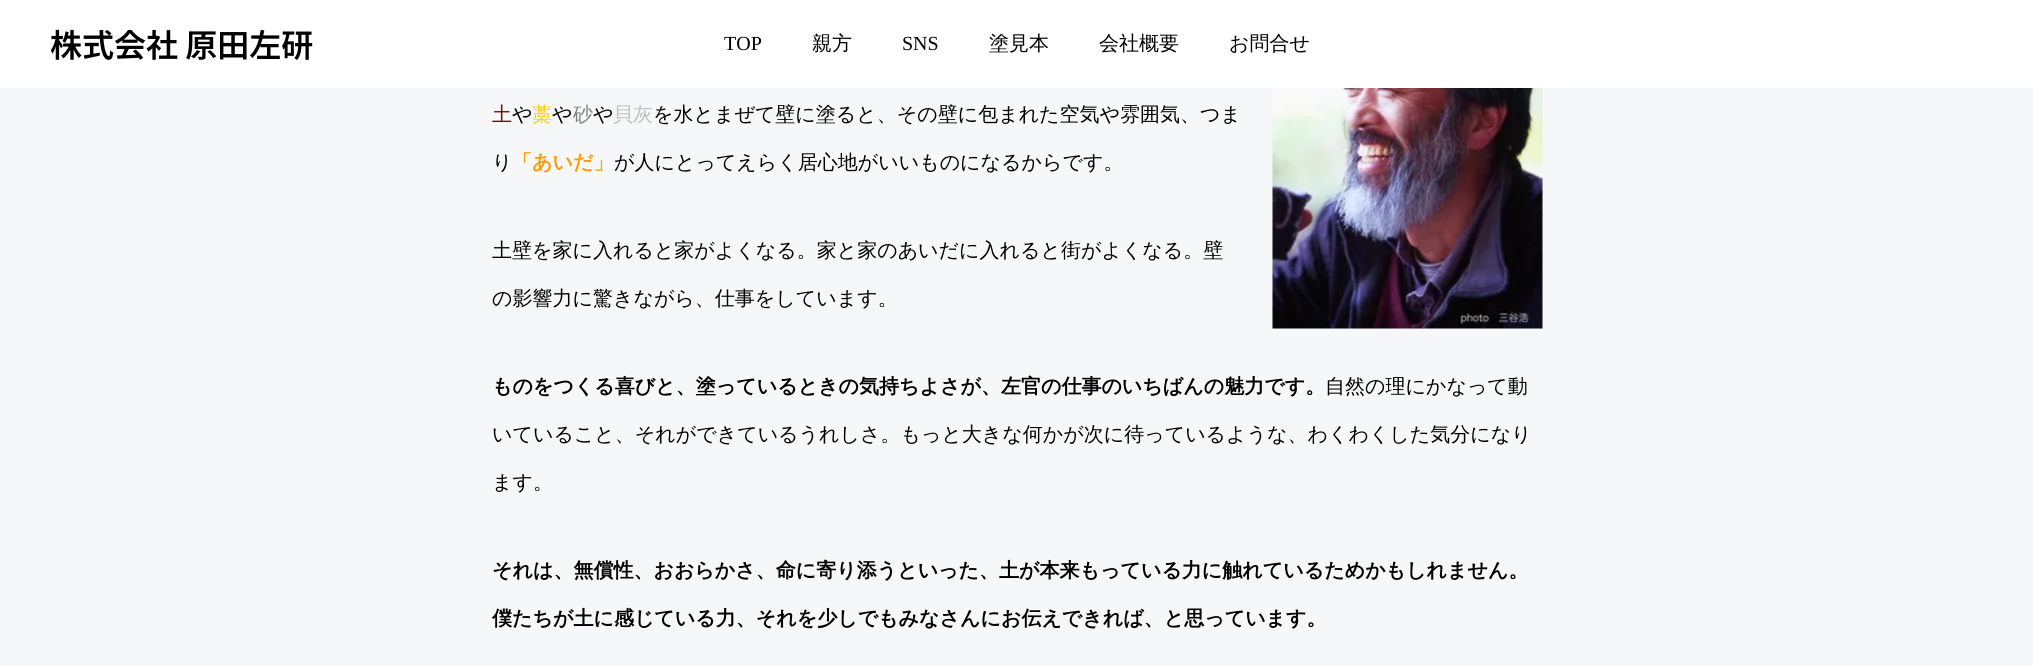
#include <cairo.h>
#include <math.h>
#include <stddef.h>

typedef struct { double x, y; const char *s; } line_t;

static void ink(cairo_t *ctx, unsigned color) {
    cairo_set_source_rgb(ctx, (color >> 16) / 255.0, (color >> 8 & 255) / 255.0, (color & 255) / 255.0);
}

static void paste(cairo_t *ctx, const char *path, double x, double y, double w, double h) {
    cairo_surface_t *image = cairo_image_surface_create_from_png(path);
    cairo_save(ctx);
    cairo_set_source_surface(ctx, image, x, y);
    cairo_rectangle(ctx, x, y, w, h);
    cairo_fill(ctx);
    cairo_restore(ctx);
    cairo_surface_destroy(image);
}

int main(void) {
    cairo_surface_t *surface = cairo_image_surface_create(CAIRO_FORMAT_RGB24, 2033, 666);
    cairo_t *ctx = cairo_create(surface);
    cairo_font_options_t *options = cairo_font_options_create();
    cairo_font_options_set_hint_metrics(options, CAIRO_HINT_METRICS_OFF);
    cairo_font_options_set_hint_style(options, CAIRO_HINT_STYLE_NONE);
    cairo_set_font_options(ctx, options);
    cairo_set_miter_limit(ctx, 4);
    ink(ctx, 0xF6F7F8);
    cairo_paint(ctx);
    ink(ctx, 0xFFFFFF);
    cairo_rectangle(ctx, 0, 0, 2033, 88);
    cairo_fill(ctx);
    cairo_select_font_face(ctx, "Noto Sans JP SemiBold", CAIRO_FONT_SLANT_NORMAL, CAIRO_FONT_WEIGHT_NORMAL);
    cairo_set_font_size(ctx, 32);
    ink(ctx, 0x000000);
    cairo_move_to(ctx, 50, 57);
    cairo_show_text(ctx, "株式会社 原田左研");
    cairo_select_font_face(ctx, "Liberation Serif", CAIRO_FONT_SLANT_NORMAL, CAIRO_FONT_WEIGHT_NORMAL);
    cairo_set_font_size(ctx, 20);
    cairo_move_to(ctx, 724, 50);
    cairo_show_text(ctx, "TOP");
    cairo_select_font_face(ctx, "WenQuanYi Zen Hei Medium", CAIRO_FONT_SLANT_NORMAL, CAIRO_FONT_WEIGHT_NORMAL);
    cairo_move_to(ctx, 812, 50);
    cairo_show_text(ctx, "親方");
    cairo_select_font_face(ctx, "Liberation Serif", CAIRO_FONT_SLANT_NORMAL, CAIRO_FONT_WEIGHT_NORMAL);
    cairo_move_to(ctx, 902, 50);
    cairo_show_text(ctx, "SNS");
    cairo_select_font_face(ctx, "WenQuanYi Zen Hei Medium", CAIRO_FONT_SLANT_NORMAL, CAIRO_FONT_WEIGHT_NORMAL);
    {
        static const line_t items[] = {
            {989, 50, "塗見本"},
            {1099, 50, "会社概要"},
            {1229, 50, "お問合せ"},
        };
        for (size_t i = 0; i < sizeof items / sizeof *items; i++) {
            cairo_move_to(ctx, items[i].x, items[i].y);
            cairo_show_text(ctx, items[i].s);
        }
    }
    ink(ctx, 0x800000);
    cairo_move_to(ctx, 492, 121);
    cairo_show_text(ctx, "土");
    ink(ctx, 0x000000);
    cairo_move_to(ctx, 512, 121);
    cairo_show_text(ctx, "や");
    ink(ctx, 0xFFCC00);
    cairo_move_to(ctx, 532, 121);
    cairo_show_text(ctx, "藁");
    ink(ctx, 0x000000);
    cairo_move_to(ctx, 552, 121);
    cairo_show_text(ctx, "や");
    ink(ctx, 0x808080);
    cairo_move_to(ctx, 573, 121);
    cairo_show_text(ctx, "砂");
    ink(ctx, 0x000000);
    cairo_move_to(ctx, 593, 121);
    cairo_show_text(ctx, "や");
    ink(ctx, 0xC0C0C0);
    cairo_move_to(ctx, 613, 121);
    cairo_show_text(ctx, "貝灰");
    ink(ctx, 0x000000);
    cairo_move_to(ctx, 653, 121);
    cairo_show_text(ctx, "を水とまぜて壁に塗ると、その壁に包まれた空気や雰囲気、つま");
    cairo_move_to(ctx, 492, 169);
    cairo_show_text(ctx, "り");
    cairo_select_font_face(ctx, "WenQuanYi Zen Hei", CAIRO_FONT_SLANT_NORMAL, CAIRO_FONT_WEIGHT_BOLD);
    ink(ctx, 0xFF9900);
    cairo_move_to(ctx, 512, 169);
    cairo_show_text(ctx, "「あいだ」");
    cairo_select_font_face(ctx, "WenQuanYi Zen Hei Medium", CAIRO_FONT_SLANT_NORMAL, CAIRO_FONT_WEIGHT_NORMAL);
    ink(ctx, 0x000000);
    cairo_move_to(ctx, 614, 169);
    cairo_show_text(ctx, "が人にとってえらく居心地がいいものになるからです。");
    paste(ctx, "media/1.png", 1272, 88, 271, 241);
    cairo_move_to(ctx, 492, 257);
    cairo_show_text(ctx, "土壁を家に入れると家がよくなる。家と家のあいだに入れると街がよくなる。壁");
    cairo_move_to(ctx, 492, 305);
    cairo_show_text(ctx, "の影響力に驚きながら、仕事をしています。");
    cairo_select_font_face(ctx, "WenQuanYi Zen Hei", CAIRO_FONT_SLANT_NORMAL, CAIRO_FONT_WEIGHT_BOLD);
    cairo_move_to(ctx, 492, 393);
    cairo_show_text(ctx, "ものをつくる喜びと、塗っているときの気持ちよさが、左官の仕事のいちばんの魅力です。");
    cairo_select_font_face(ctx, "WenQuanYi Zen Hei Medium", CAIRO_FONT_SLANT_NORMAL, CAIRO_FONT_WEIGHT_NORMAL);
    {
        static const line_t items[] = {
            {1325, 393, "自然の理にかなって動"},
            {492, 441, "いていること、それができているうれしさ。もっと大きな何かが次に待っているような、わくわくした気分になり"},
            {492, 489, "ます。"},
        };
        for (size_t i = 0; i < sizeof items / sizeof *items; i++) {
            cairo_move_to(ctx, items[i].x, items[i].y);
            cairo_show_text(ctx, items[i].s);
        }
    }
    cairo_select_font_face(ctx, "WenQuanYi Zen Hei", CAIRO_FONT_SLANT_NORMAL, CAIRO_FONT_WEIGHT_BOLD);
    cairo_move_to(ctx, 492, 577);
    cairo_show_text(ctx, "それは、無償性、おおらかさ、命に寄り添うといった、土が本来もっている力に触れているためかもしれません。");
    cairo_move_to(ctx, 492, 625);
    cairo_show_text(ctx, "僕たちが土に感じている力、それを少しでもみなさんにお伝えできれば、と思っています。");
    cairo_surface_write_to_png(surface, "image.png");
    cairo_font_options_destroy(options);
    cairo_destroy(ctx);
    cairo_surface_destroy(surface);
    return 0;
}
